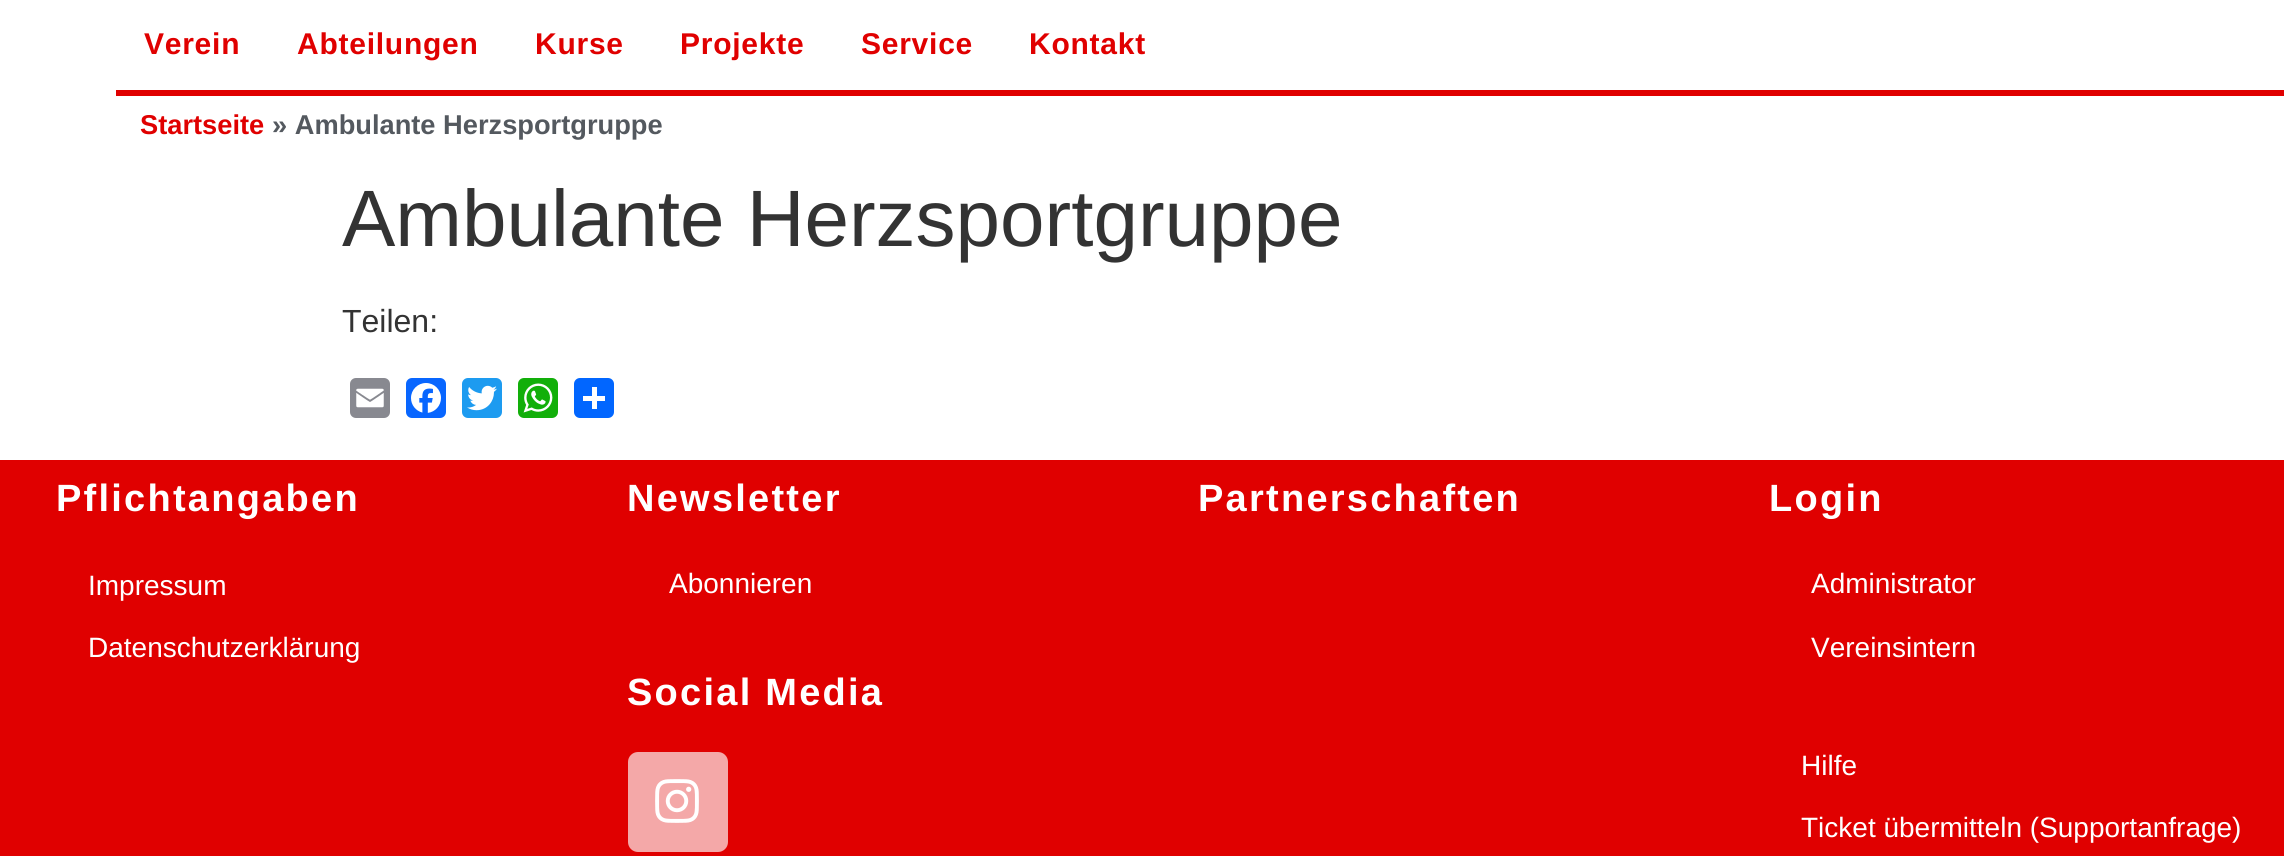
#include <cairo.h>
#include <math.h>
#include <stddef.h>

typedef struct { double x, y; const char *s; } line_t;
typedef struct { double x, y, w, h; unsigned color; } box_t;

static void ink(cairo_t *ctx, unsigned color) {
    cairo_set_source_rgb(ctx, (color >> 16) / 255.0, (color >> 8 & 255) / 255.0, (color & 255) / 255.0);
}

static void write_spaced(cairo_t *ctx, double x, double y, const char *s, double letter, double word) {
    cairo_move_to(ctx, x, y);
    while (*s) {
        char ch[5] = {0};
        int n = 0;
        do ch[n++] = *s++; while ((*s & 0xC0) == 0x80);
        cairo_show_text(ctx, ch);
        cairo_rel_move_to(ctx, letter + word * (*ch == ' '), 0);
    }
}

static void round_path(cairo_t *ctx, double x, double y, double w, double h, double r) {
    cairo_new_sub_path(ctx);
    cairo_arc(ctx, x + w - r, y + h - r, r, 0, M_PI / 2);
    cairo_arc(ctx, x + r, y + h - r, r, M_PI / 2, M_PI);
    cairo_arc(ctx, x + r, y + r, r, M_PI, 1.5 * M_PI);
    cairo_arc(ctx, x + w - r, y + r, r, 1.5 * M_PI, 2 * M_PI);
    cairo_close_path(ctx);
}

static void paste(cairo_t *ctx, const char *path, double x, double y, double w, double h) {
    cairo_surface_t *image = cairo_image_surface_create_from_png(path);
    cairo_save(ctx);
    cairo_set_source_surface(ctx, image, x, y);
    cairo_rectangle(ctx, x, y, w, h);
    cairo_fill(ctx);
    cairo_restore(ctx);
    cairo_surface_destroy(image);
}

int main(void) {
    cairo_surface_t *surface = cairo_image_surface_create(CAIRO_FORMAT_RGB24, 2284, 856);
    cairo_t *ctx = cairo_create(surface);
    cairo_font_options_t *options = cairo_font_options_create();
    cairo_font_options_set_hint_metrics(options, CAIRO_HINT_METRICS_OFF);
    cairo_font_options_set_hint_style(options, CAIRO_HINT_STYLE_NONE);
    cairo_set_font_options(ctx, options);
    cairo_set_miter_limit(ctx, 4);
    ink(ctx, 0xFFFFFF);
    cairo_paint(ctx);
    cairo_select_font_face(ctx, "Liberation Sans", CAIRO_FONT_SLANT_NORMAL, CAIRO_FONT_WEIGHT_BOLD);
    cairo_set_font_size(ctx, 30);
    ink(ctx, 0xE00000);
    {
        static const line_t items[] = {
            {144, 54, "Verein"},
            {297, 54, "Abteilungen"},
            {535, 54, "Kurse"},
            {680, 54, "Projekte"},
            {861, 54, "Service"},
            {1029, 54, "Kontakt"},
        };
        for (size_t i = 0; i < sizeof items / sizeof *items; i++) {
            write_spaced(ctx, items[i].x, items[i].y, items[i].s, 0.75, 0);
        }
    }
    cairo_rectangle(ctx, 116, 90, 2168, 6);
    cairo_fill(ctx);
    cairo_set_font_size(ctx, 27.25);
    cairo_move_to(ctx, 140, 134);
    cairo_show_text(ctx, "Startseite");
    ink(ctx, 0x54595F);
    cairo_move_to(ctx, 272, 134);
    cairo_show_text(ctx, "» Ambulante Herzsportgruppe");
    cairo_select_font_face(ctx, "Liberation Sans", CAIRO_FONT_SLANT_NORMAL, CAIRO_FONT_WEIGHT_NORMAL);
    cairo_set_font_size(ctx, 80);
    ink(ctx, 0x333333);
    cairo_move_to(ctx, 342, 246);
    cairo_show_text(ctx, "Ambulante Herzsportgruppe");
    cairo_set_font_size(ctx, 32);
    cairo_move_to(ctx, 342, 332);
    cairo_show_text(ctx, "Teilen:");
    ink(ctx, 0x888990);
    round_path(ctx, 350, 378, 40, 40, 6);
    cairo_fill(ctx);
    paste(ctx, "media/1.png", 356, 388, 28, 20);
    ink(ctx, 0x0866FF);
    round_path(ctx, 406, 378, 40, 40, 6);
    cairo_fill(ctx);
    paste(ctx, "media/2.png", 411, 383, 30, 30);
    ink(ctx, 0x1D9BF0);
    round_path(ctx, 462, 378, 40, 40, 6);
    cairo_fill(ctx);
    paste(ctx, "media/3.png", 467, 385, 30, 26);
    ink(ctx, 0x12AF0A);
    round_path(ctx, 518, 378, 40, 40, 6);
    cairo_fill(ctx);
    paste(ctx, "media/4.png", 523, 383, 30, 30);
    ink(ctx, 0x0166FF);
    round_path(ctx, 574, 378, 40, 40, 6);
    cairo_fill(ctx);
    {
        static const box_t items[] = {
            {592, 387, 5, 22, 0xFFFFFF},
            {583, 396, 22, 5, 0xFFFFFF},
            {0, 460, 2284, 396, 0xE00000},
        };
        for (size_t i = 0; i < sizeof items / sizeof *items; i++) {
            ink(ctx, items[i].color);
            cairo_rectangle(ctx, items[i].x, items[i].y, items[i].w, items[i].h);
            cairo_fill(ctx);
        }
    }
    cairo_select_font_face(ctx, "Liberation Sans", CAIRO_FONT_SLANT_NORMAL, CAIRO_FONT_WEIGHT_BOLD);
    cairo_set_font_size(ctx, 38);
    ink(ctx, 0xFFFFFF);
    write_spaced(ctx, 56, 511, "Pflichtangaben", 2.25, 0);
    cairo_select_font_face(ctx, "Liberation Sans", CAIRO_FONT_SLANT_NORMAL, CAIRO_FONT_WEIGHT_NORMAL);
    cairo_set_font_size(ctx, 28);
    cairo_move_to(ctx, 88, 595);
    cairo_show_text(ctx, "Impressum");
    cairo_move_to(ctx, 88, 657);
    cairo_show_text(ctx, "Datenschutzerklärung");
    cairo_select_font_face(ctx, "Liberation Sans", CAIRO_FONT_SLANT_NORMAL, CAIRO_FONT_WEIGHT_BOLD);
    cairo_set_font_size(ctx, 38);
    write_spaced(ctx, 627, 511, "Newsletter", 2.25, 0);
    cairo_select_font_face(ctx, "Liberation Sans", CAIRO_FONT_SLANT_NORMAL, CAIRO_FONT_WEIGHT_NORMAL);
    cairo_set_font_size(ctx, 28);
    cairo_move_to(ctx, 669, 593);
    cairo_show_text(ctx, "Abonnieren");
    cairo_select_font_face(ctx, "Liberation Sans", CAIRO_FONT_SLANT_NORMAL, CAIRO_FONT_WEIGHT_BOLD);
    cairo_set_font_size(ctx, 38);
    write_spaced(ctx, 627, 705, "Social Media", 2.25, 0);
    ink(ctx, 0xF4A8A8);
    round_path(ctx, 628, 752, 100, 100, 10);
    cairo_fill(ctx);
    paste(ctx, "media/5.png", 655, 779, 44, 44);
    ink(ctx, 0xFFFFFF);
    write_spaced(ctx, 1198, 511, "Partnerschaften", 2.25, 0);
    write_spaced(ctx, 1769, 511, "Login", 2.25, 0);
    cairo_select_font_face(ctx, "Liberation Sans", CAIRO_FONT_SLANT_NORMAL, CAIRO_FONT_WEIGHT_NORMAL);
    cairo_set_font_size(ctx, 28);
    {
        static const line_t items[] = {
            {1811, 593, "Administrator"},
            {1811, 657, "Vereinsintern"},
            {1801, 775, "Hilfe"},
            {1801, 837, "Ticket übermitteln (Supportanfrage)"},
        };
        for (size_t i = 0; i < sizeof items / sizeof *items; i++) {
            cairo_move_to(ctx, items[i].x, items[i].y);
            cairo_show_text(ctx, items[i].s);
        }
    }
    cairo_surface_write_to_png(surface, "image.png");
    cairo_font_options_destroy(options);
    cairo_destroy(ctx);
    cairo_surface_destroy(surface);
    return 0;
}
